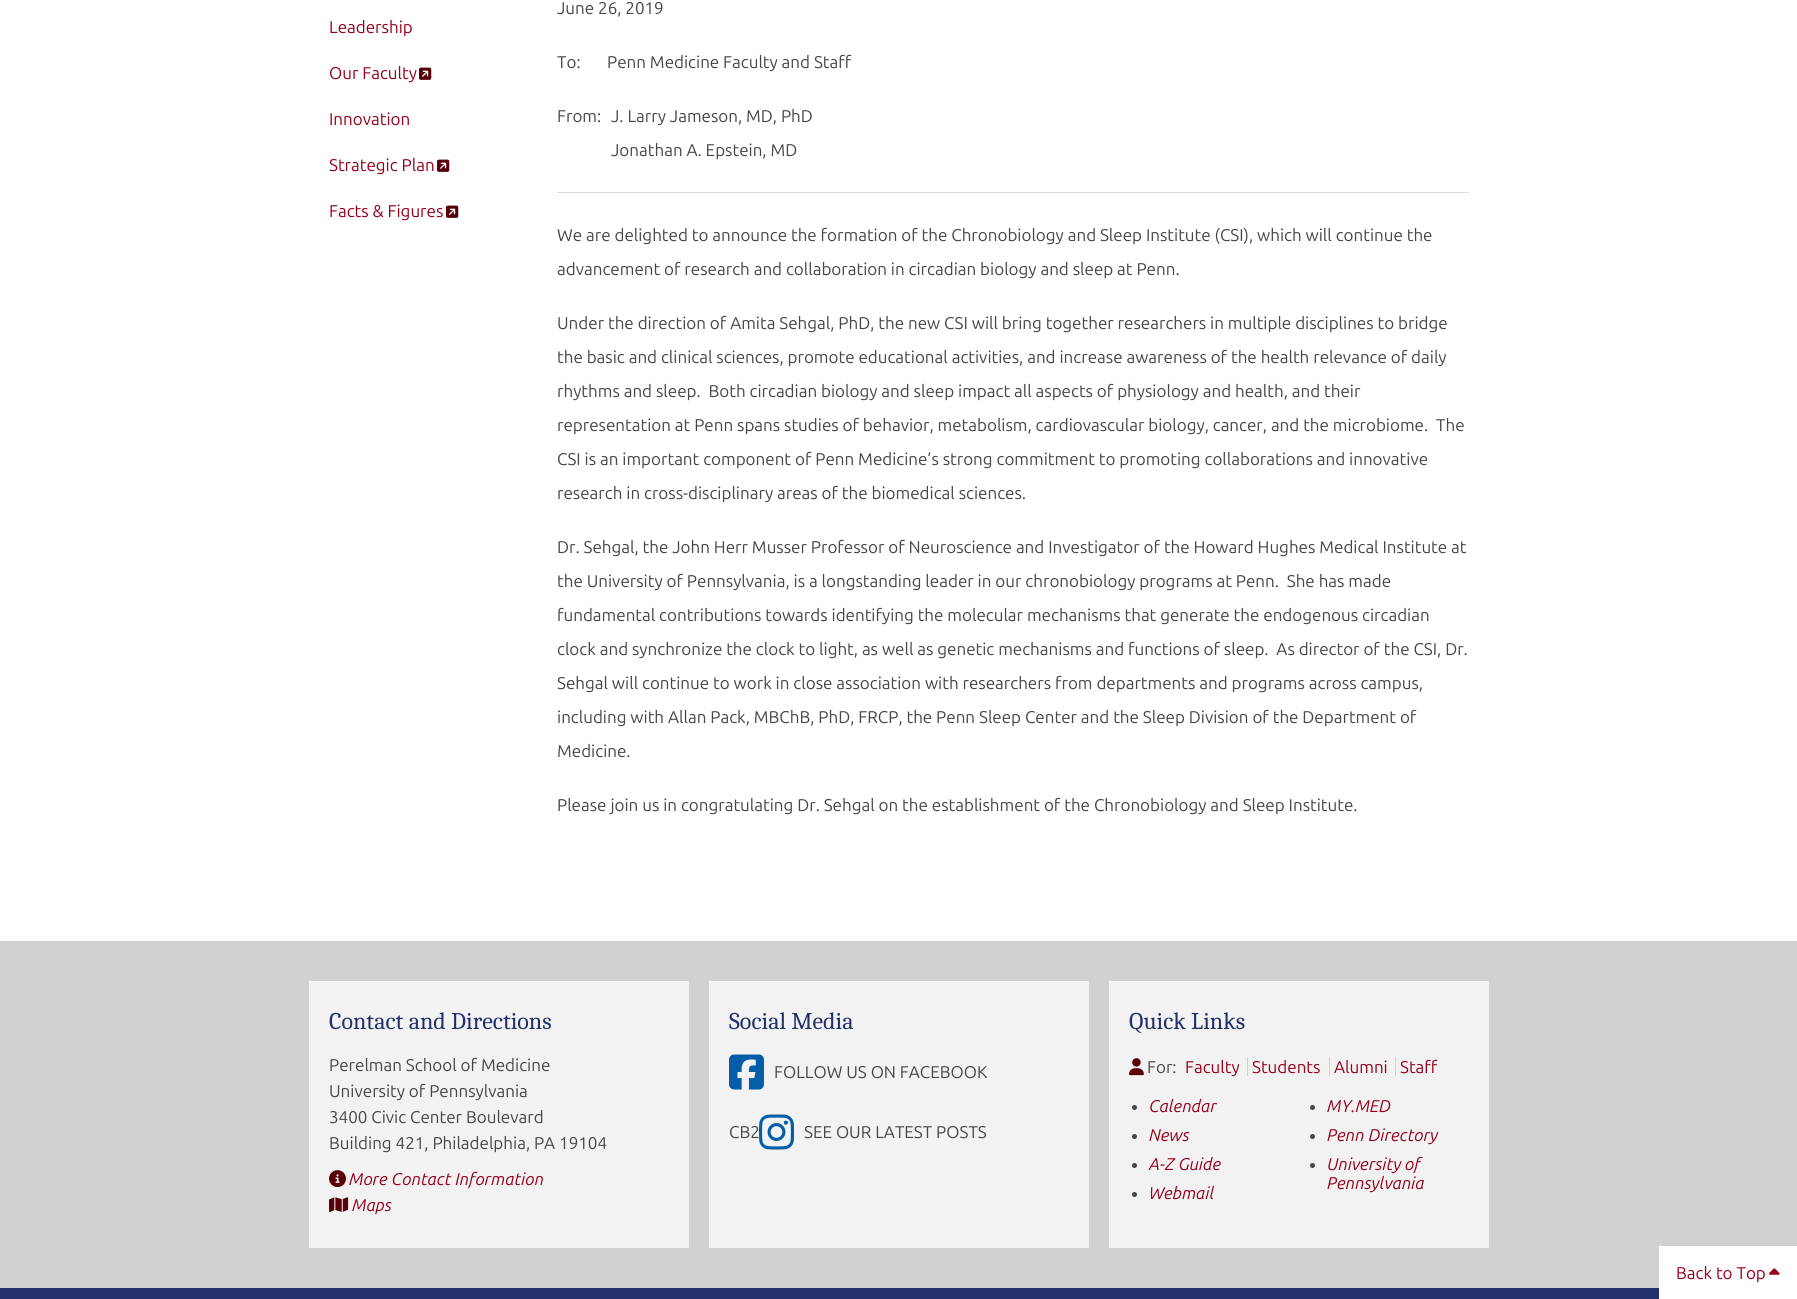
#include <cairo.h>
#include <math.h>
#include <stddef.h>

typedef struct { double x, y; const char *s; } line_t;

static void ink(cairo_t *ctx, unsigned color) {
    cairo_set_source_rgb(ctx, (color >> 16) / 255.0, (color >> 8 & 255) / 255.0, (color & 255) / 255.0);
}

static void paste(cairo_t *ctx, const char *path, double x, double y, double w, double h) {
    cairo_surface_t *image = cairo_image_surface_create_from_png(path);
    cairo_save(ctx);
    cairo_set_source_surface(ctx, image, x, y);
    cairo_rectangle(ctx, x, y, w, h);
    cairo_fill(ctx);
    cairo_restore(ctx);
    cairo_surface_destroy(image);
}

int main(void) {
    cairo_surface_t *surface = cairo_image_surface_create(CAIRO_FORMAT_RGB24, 1797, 1299);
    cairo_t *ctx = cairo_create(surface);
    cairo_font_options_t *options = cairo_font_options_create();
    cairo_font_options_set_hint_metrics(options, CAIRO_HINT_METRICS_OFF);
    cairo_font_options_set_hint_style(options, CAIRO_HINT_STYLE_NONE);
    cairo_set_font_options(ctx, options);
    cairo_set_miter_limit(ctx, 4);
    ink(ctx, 0xFFFFFF);
    cairo_paint(ctx);
    cairo_select_font_face(ctx, "Ubuntu", CAIRO_FONT_SLANT_NORMAL, CAIRO_FONT_WEIGHT_NORMAL);
    cairo_set_font_size(ctx, 17);
    ink(ctx, 0x95001A);
    cairo_move_to(ctx, 329, 33);
    cairo_show_text(ctx, "Leadership");
    cairo_move_to(ctx, 329, 79);
    cairo_show_text(ctx, "Our Faculty");
    paste(ctx, "media/1.png", 419, 67, 13, 13);
    cairo_move_to(ctx, 329, 125);
    cairo_show_text(ctx, "Innovation");
    cairo_move_to(ctx, 329, 171);
    cairo_show_text(ctx, "Strategic Plan");
    paste(ctx, "media/1.png", 437, 159, 13, 13);
    cairo_move_to(ctx, 329, 217);
    cairo_show_text(ctx, "Facts & Figures");
    paste(ctx, "media/1.png", 446, 205, 13, 13);
    ink(ctx, 0x44464B);
    {
        static const line_t items[] = {
            {557, 14, "June 26, 2019"},
            {557, 68, "To:"},
            {607, 68, "Penn Medicine Faculty and Staff"},
            {557, 122, "From:"},
            {611, 122, "J. Larry Jameson, MD, PhD"},
            {611, 156, "Jonathan A. Epstein, MD"},
        };
        for (size_t i = 0; i < sizeof items / sizeof *items; i++) {
            cairo_move_to(ctx, items[i].x, items[i].y);
            cairo_show_text(ctx, items[i].s);
        }
    }
    ink(ctx, 0xDDDDDD);
    cairo_rectangle(ctx, 557, 192, 912, 1);
    cairo_fill(ctx);
    ink(ctx, 0x44464B);
    {
        static const line_t items[] = {
            {557, 241, "We are delighted to announce the formation of the Chronobiology and Sleep Institute (CSI), which will continue the"},
            {557, 275, "advancement of research and collaboration in circadian biology and sleep at Penn."},
            {557, 329, "Under the direction of Amita Sehgal, PhD, the new CSI will bring together researchers in multiple disciplines to bridge"},
            {557, 363, "the basic and clinical sciences, promote educational activities, and increase awareness of the health relevance of daily"},
            {557, 397, "rhythms and sleep.  Both circadian biology and sleep impact all aspects of physiology and health, and their"},
            {557, 431, "representation at Penn spans studies of behavior, metabolism, cardiovascular biology, cancer, and the microbiome.  The"},
            {557, 465, "CSI is an important component of Penn Medicine’s strong commitment to promoting collaborations and innovative"},
            {557, 499, "research in cross-disciplinary areas of the biomedical sciences."},
            {557, 553, "Dr. Sehgal, the John Herr Musser Professor of Neuroscience and Investigator of the Howard Hughes Medical Institute at"},
            {557, 587, "the University of Pennsylvania, is a longstanding leader in our chronobiology programs at Penn.  She has made"},
            {557, 621, "fundamental contributions towards identifying the molecular mechanisms that generate the endogenous circadian"},
            {557, 655, "clock and synchronize the clock to light, as well as genetic mechanisms and functions of sleep.  As director of the CSI, Dr."},
            {557, 689, "Sehgal will continue to work in close association with researchers from departments and programs across campus,"},
            {557, 723, "including with Allan Pack, MBChB, PhD, FRCP, the Penn Sleep Center and the Sleep Division of the Department of"},
            {557, 757, "Medicine."},
            {557, 811, "Please join us in congratulating Dr. Sehgal on the establishment of the Chronobiology and Sleep Institute."},
        };
        for (size_t i = 0; i < sizeof items / sizeof *items; i++) {
            cairo_move_to(ctx, items[i].x, items[i].y);
            cairo_show_text(ctx, items[i].s);
        }
    }
    ink(ctx, 0xD0D1D2);
    cairo_rectangle(ctx, 0, 941, 1797, 347);
    cairo_fill(ctx);
    ink(ctx, 0xF2F2F3);
    cairo_rectangle(ctx, 309, 981, 380, 267);
    cairo_fill(ctx);
    cairo_select_font_face(ctx, "Caladea", CAIRO_FONT_SLANT_NORMAL, CAIRO_FONT_WEIGHT_NORMAL);
    cairo_set_font_size(ctx, 24);
    ink(ctx, 0x243069);
    cairo_move_to(ctx, 329, 1029);
    cairo_show_text(ctx, "Contact and Directions");
    cairo_select_font_face(ctx, "Ubuntu", CAIRO_FONT_SLANT_NORMAL, CAIRO_FONT_WEIGHT_NORMAL);
    cairo_set_font_size(ctx, 17);
    ink(ctx, 0x44464B);
    {
        static const line_t items[] = {
            {329, 1071, "Perelman School of Medicine"},
            {329, 1097, "University of Pennsylvania"},
            {329, 1123, "3400 Civic Center Boulevard"},
            {329, 1149, "Building 421, Philadelphia, PA 19104"},
        };
        for (size_t i = 0; i < sizeof items / sizeof *items; i++) {
            cairo_move_to(ctx, items[i].x, items[i].y);
            cairo_show_text(ctx, items[i].s);
        }
    }
    paste(ctx, "media/2.png", 329, 1170, 17, 18);
    cairo_select_font_face(ctx, "Ubuntu", CAIRO_FONT_SLANT_ITALIC, CAIRO_FONT_WEIGHT_NORMAL);
    ink(ctx, 0x95001A);
    cairo_move_to(ctx, 349, 1185);
    cairo_show_text(ctx, "More Contact Information");
    paste(ctx, "media/3.png", 329, 1197, 20, 15);
    cairo_move_to(ctx, 352, 1211);
    cairo_show_text(ctx, "Maps");
    ink(ctx, 0xF2F2F3);
    cairo_rectangle(ctx, 709, 981, 380, 267);
    cairo_fill(ctx);
    cairo_select_font_face(ctx, "Caladea", CAIRO_FONT_SLANT_NORMAL, CAIRO_FONT_WEIGHT_NORMAL);
    cairo_set_font_size(ctx, 24);
    ink(ctx, 0x243069);
    cairo_move_to(ctx, 729, 1029);
    cairo_show_text(ctx, "Social Media");
    paste(ctx, "media/4.png", 729, 1054, 35, 36);
    cairo_select_font_face(ctx, "Ubuntu", CAIRO_FONT_SLANT_NORMAL, CAIRO_FONT_WEIGHT_NORMAL);
    cairo_set_font_size(ctx, 17);
    ink(ctx, 0x44464B);
    cairo_move_to(ctx, 774, 1078);
    cairo_show_text(ctx, "FOLLOW US ON FACEBOOK");
    cairo_move_to(ctx, 729, 1138);
    cairo_show_text(ctx, "CB2");
    paste(ctx, "media/5.png", 759, 1114, 35, 36);
    cairo_move_to(ctx, 804, 1138);
    cairo_show_text(ctx, "SEE OUR LATEST POSTS");
    ink(ctx, 0xF2F2F3);
    cairo_rectangle(ctx, 1109, 981, 380, 267);
    cairo_fill(ctx);
    cairo_select_font_face(ctx, "Caladea", CAIRO_FONT_SLANT_NORMAL, CAIRO_FONT_WEIGHT_NORMAL);
    cairo_set_font_size(ctx, 24);
    ink(ctx, 0x243069);
    cairo_move_to(ctx, 1129, 1029);
    cairo_show_text(ctx, "Quick Links");
    paste(ctx, "media/6.png", 1129, 1058, 15, 18);
    cairo_select_font_face(ctx, "Ubuntu", CAIRO_FONT_SLANT_NORMAL, CAIRO_FONT_WEIGHT_NORMAL);
    cairo_set_font_size(ctx, 17);
    ink(ctx, 0x44464B);
    cairo_move_to(ctx, 1147, 1073);
    cairo_show_text(ctx, "For:");
    ink(ctx, 0x95001A);
    cairo_move_to(ctx, 1185, 1073);
    cairo_show_text(ctx, "Faculty");
    ink(ctx, 0xD0D1D2);
    cairo_rectangle(ctx, 1247, 1057, 1, 19);
    cairo_fill(ctx);
    ink(ctx, 0x95001A);
    cairo_move_to(ctx, 1252, 1073);
    cairo_show_text(ctx, "Students");
    ink(ctx, 0xD0D1D2);
    cairo_rectangle(ctx, 1329, 1057, 1, 19);
    cairo_fill(ctx);
    ink(ctx, 0x95001A);
    cairo_move_to(ctx, 1334, 1073);
    cairo_show_text(ctx, "Alumni");
    ink(ctx, 0xD0D1D2);
    cairo_rectangle(ctx, 1395, 1057, 1, 19);
    cairo_fill(ctx);
    ink(ctx, 0x95001A);
    cairo_move_to(ctx, 1400, 1073);
    cairo_show_text(ctx, "Staff");
    ink(ctx, 0x44464B);
    cairo_new_path(ctx);
    cairo_arc(ctx, 1134.5, 1107.5, 2.5, 0, 2 * M_PI);
    cairo_fill(ctx);
    cairo_select_font_face(ctx, "Ubuntu", CAIRO_FONT_SLANT_ITALIC, CAIRO_FONT_WEIGHT_NORMAL);
    ink(ctx, 0x95001A);
    cairo_move_to(ctx, 1149, 1112);
    cairo_show_text(ctx, "Calendar");
    ink(ctx, 0x44464B);
    cairo_new_path(ctx);
    cairo_arc(ctx, 1312.5, 1107.5, 2.5, 0, 2 * M_PI);
    cairo_fill(ctx);
    ink(ctx, 0x95001A);
    cairo_move_to(ctx, 1327, 1112);
    cairo_show_text(ctx, "MY.MED");
    ink(ctx, 0x44464B);
    cairo_new_path(ctx);
    cairo_arc(ctx, 1134.5, 1136.5, 2.5, 0, 2 * M_PI);
    cairo_fill(ctx);
    ink(ctx, 0x95001A);
    cairo_move_to(ctx, 1149, 1141);
    cairo_show_text(ctx, "News");
    ink(ctx, 0x44464B);
    cairo_new_path(ctx);
    cairo_arc(ctx, 1312.5, 1136.5, 2.5, 0, 2 * M_PI);
    cairo_fill(ctx);
    ink(ctx, 0x95001A);
    cairo_move_to(ctx, 1327, 1141);
    cairo_show_text(ctx, "Penn Directory");
    ink(ctx, 0x44464B);
    cairo_new_path(ctx);
    cairo_arc(ctx, 1134.5, 1165.5, 2.5, 0, 2 * M_PI);
    cairo_fill(ctx);
    ink(ctx, 0x95001A);
    cairo_move_to(ctx, 1149, 1170);
    cairo_show_text(ctx, "A-Z Guide");
    ink(ctx, 0x44464B);
    cairo_new_path(ctx);
    cairo_arc(ctx, 1312.5, 1165.5, 2.5, 0, 2 * M_PI);
    cairo_fill(ctx);
    ink(ctx, 0x95001A);
    cairo_move_to(ctx, 1327, 1170);
    cairo_show_text(ctx, "University of");
    cairo_move_to(ctx, 1327, 1189);
    cairo_show_text(ctx, "Pennsylvania");
    ink(ctx, 0x44464B);
    cairo_new_path(ctx);
    cairo_arc(ctx, 1134.5, 1194.5, 2.5, 0, 2 * M_PI);
    cairo_fill(ctx);
    ink(ctx, 0x95001A);
    cairo_move_to(ctx, 1149, 1199);
    cairo_show_text(ctx, "Webmail");
    ink(ctx, 0x243069);
    cairo_rectangle(ctx, 0, 1288, 1659, 11);
    cairo_fill(ctx);
    ink(ctx, 0xFFFFFF);
    cairo_rectangle(ctx, 1659, 1246, 138, 42);
    cairo_fill(ctx);
    cairo_select_font_face(ctx, "Ubuntu", CAIRO_FONT_SLANT_NORMAL, CAIRO_FONT_WEIGHT_NORMAL);
    ink(ctx, 0x95001A);
    cairo_move_to(ctx, 1676, 1279);
    cairo_show_text(ctx, "Back to Top");
    paste(ctx, "media/7.png", 1769, 1268, 11, 7);
    cairo_surface_write_to_png(surface, "image.png");
    cairo_font_options_destroy(options);
    cairo_destroy(ctx);
    cairo_surface_destroy(surface);
    return 0;
}
